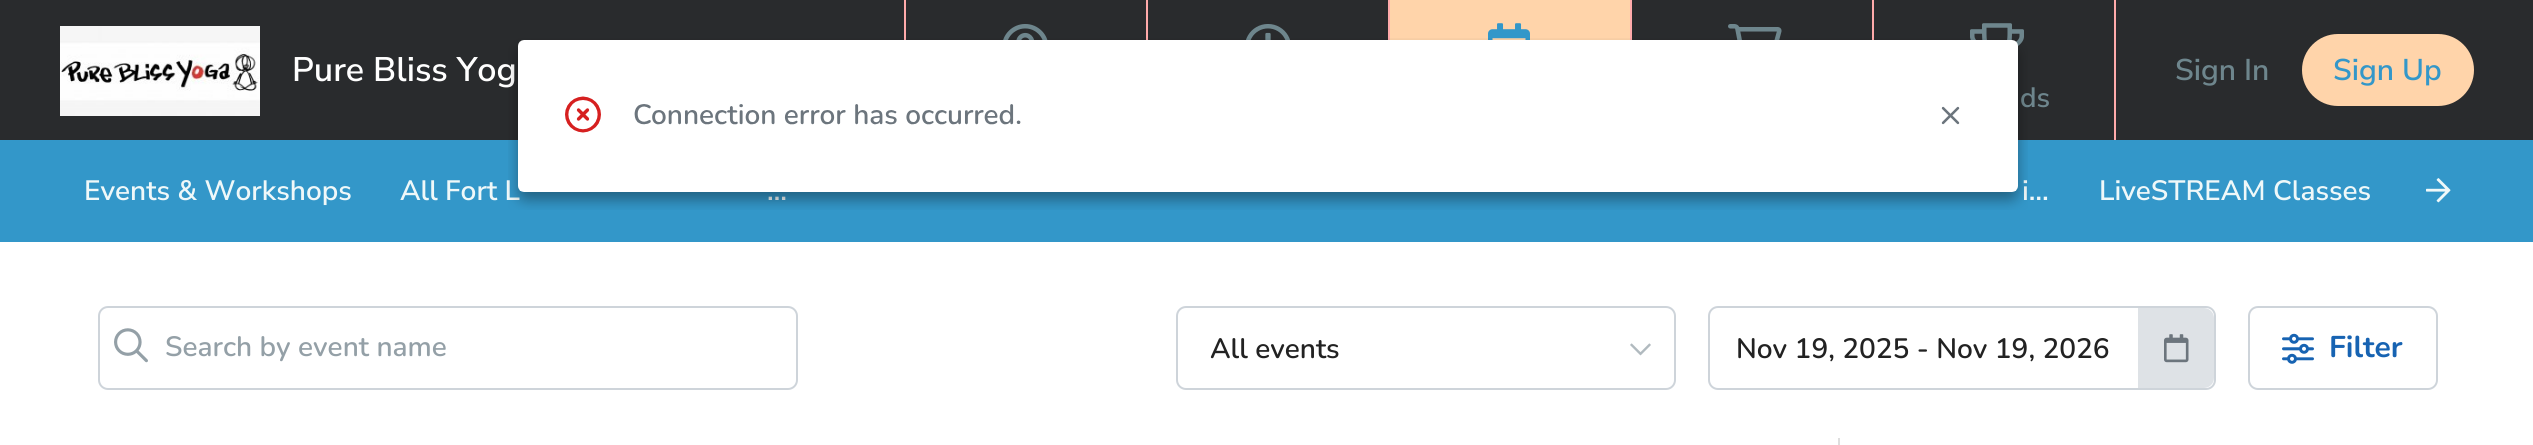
#include <cairo.h>
#include <math.h>
#include <stddef.h>

typedef struct { double x, y; const char *s; } line_t;

static void ink(cairo_t *ctx, unsigned color) {
    cairo_set_source_rgb(ctx, (color >> 16) / 255.0, (color >> 8 & 255) / 255.0, (color & 255) / 255.0);
}

static void round_path(cairo_t *ctx, double x, double y, double w, double h, double r) {
    cairo_new_sub_path(ctx);
    cairo_arc(ctx, x + w - r, y + h - r, r, 0, M_PI / 2);
    cairo_arc(ctx, x + r, y + h - r, r, M_PI / 2, M_PI);
    cairo_arc(ctx, x + r, y + r, r, M_PI, 1.5 * M_PI);
    cairo_arc(ctx, x + w - r, y + r, r, 1.5 * M_PI, 2 * M_PI);
    cairo_close_path(ctx);
}

static void paste(cairo_t *ctx, const char *path, double x, double y, double w, double h) {
    cairo_surface_t *image = cairo_image_surface_create_from_png(path);
    cairo_save(ctx);
    cairo_set_source_surface(ctx, image, x, y);
    cairo_rectangle(ctx, x, y, w, h);
    cairo_fill(ctx);
    cairo_restore(ctx);
    cairo_surface_destroy(image);
}

int main(void) {
    cairo_surface_t *surface = cairo_image_surface_create(CAIRO_FORMAT_RGB24, 2533, 445);
    cairo_t *ctx = cairo_create(surface);
    cairo_font_options_t *options = cairo_font_options_create();
    cairo_font_options_set_hint_metrics(options, CAIRO_HINT_METRICS_OFF);
    cairo_font_options_set_hint_style(options, CAIRO_HINT_STYLE_NONE);
    cairo_set_font_options(ctx, options);
    cairo_set_miter_limit(ctx, 4);
    ink(ctx, 0xFFFFFF);
    cairo_paint(ctx);
    ink(ctx, 0x292B2D);
    cairo_rectangle(ctx, 0, 0, 2533, 140);
    cairo_fill(ctx);
    cairo_select_font_face(ctx, "Nunito Sans SemiBold", CAIRO_FONT_SLANT_NORMAL, CAIRO_FONT_WEIGHT_NORMAL);
    cairo_set_font_size(ctx, 34);
    ink(ctx, 0xFFFFFF);
    cairo_move_to(ctx, 292, 81);
    cairo_show_text(ctx, "Pure Bliss Yog");
    ink(ctx, 0xFFAAAA);
    cairo_rectangle(ctx, 904, 0, 2, 40);
    cairo_fill(ctx);
    cairo_rectangle(ctx, 1146, 0, 2, 40);
    cairo_fill(ctx);
    paste(ctx, "media/3.png", 1003, 24, 45, 16);
    cairo_rectangle(ctx, 1388, 0, 2, 40);
    cairo_fill(ctx);
    paste(ctx, "media/4.png", 1246, 24, 44, 16);
    cairo_rectangle(ctx, 1630, 0, 2, 40);
    cairo_fill(ctx);
    ink(ctx, 0xFFD4AA);
    cairo_rectangle(ctx, 1390, 0, 240, 40);
    cairo_fill(ctx);
    paste(ctx, "media/5.png", 1488, 23, 42, 17);
    ink(ctx, 0xFFAAAA);
    cairo_rectangle(ctx, 1872, 0, 2, 40);
    cairo_fill(ctx);
    paste(ctx, "media/6.png", 1728, 24, 54, 16);
    paste(ctx, "media/7.png", 1970, 23, 54, 23);
    cairo_set_font_size(ctx, 28);
    ink(ctx, 0x6E868D);
    cairo_move_to(ctx, 2020, 107);
    cairo_show_text(ctx, "ds");
    ink(ctx, 0x3397C9);
    cairo_rectangle(ctx, 0, 140, 2533, 102);
    cairo_fill(ctx);
    ink(ctx, 0xEFF8F9);
    {
        static const line_t items[] = {
            {400, 200, "All Fort L"},
            {767, 200, "…"},
            {2022, 200, "i…"},
        };
        for (size_t i = 0; i < sizeof items / sizeof *items; i++) {
            cairo_move_to(ctx, items[i].x, items[i].y);
            cairo_show_text(ctx, items[i].s);
        }
    }
    paste(ctx, "media/1.png", 508, 38, 1520, 172);
    paste(ctx, "media/2.png", 60, 26, 200, 90);
    cairo_set_font_size(ctx, 30);
    ink(ctx, 0x6E868D);
    cairo_move_to(ctx, 2175, 80);
    cairo_show_text(ctx, "Sign In");
    ink(ctx, 0xFFD4AA);
    round_path(ctx, 2302, 34, 172, 72, 36);
    cairo_fill(ctx);
    ink(ctx, 0x3397C9);
    cairo_move_to(ctx, 2333, 80);
    cairo_show_text(ctx, "Sign Up");
    ink(ctx, 0xFFAAAA);
    cairo_rectangle(ctx, 2114, 0, 2, 140);
    cairo_fill(ctx);
    cairo_set_font_size(ctx, 28);
    ink(ctx, 0xEFF8F9);
    cairo_move_to(ctx, 84, 200);
    cairo_show_text(ctx, "Events & Workshops");
    cairo_move_to(ctx, 2099, 200);
    cairo_show_text(ctx, "LiveSTREAM Classes");
    paste(ctx, "media/8.png", 2426, 178, 25, 25);
    round_path(ctx, 99, 307, 698, 82, 9);
    ink(ctx, 0xCED4DA);
    cairo_stroke(ctx);
    paste(ctx, "media/9.png", 114, 328, 34, 35);
    cairo_select_font_face(ctx, "Nunito SemiBold", CAIRO_FONT_SLANT_NORMAL, CAIRO_FONT_WEIGHT_NORMAL);
    ink(ctx, 0x94A0A7);
    cairo_move_to(ctx, 165, 356);
    cairo_show_text(ctx, "Search by event name");
    round_path(ctx, 1177, 307, 498, 82, 9);
    ink(ctx, 0xCED4DA);
    cairo_stroke(ctx);
    ink(ctx, 0x222222);
    cairo_move_to(ctx, 1210, 358);
    cairo_show_text(ctx, "All events");
    paste(ctx, "media/10.png", 1630, 343, 21, 13);
    round_path(ctx, 1709, 307, 506, 82, 9);
    ink(ctx, 0xCED4DA);
    cairo_stroke(ctx);
    ink(ctx, 0x222222);
    cairo_move_to(ctx, 1736, 358);
    cairo_show_text(ctx, "Nov 19, 2025 - Nov 19, 2026");
    ink(ctx, 0xDEE2E6);
    cairo_new_path(ctx);
    cairo_move_to(ctx, 2138, 308);
    cairo_line_to(ctx, 2204, 308);
    cairo_curve_to(ctx, 2209.5, 308, 2214, 312.5, 2214, 318);
    cairo_line_to(ctx, 2214, 378);
    cairo_curve_to(ctx, 2214, 383.5, 2209.5, 388, 2204, 388);
    cairo_line_to(ctx, 2138, 388);
    cairo_close_path(ctx);
    cairo_fill(ctx);
    paste(ctx, "media/11.png", 2164, 334, 25, 29);
    round_path(ctx, 2249, 307, 188, 82, 9);
    ink(ctx, 0xCED4DA);
    cairo_stroke(ctx);
    paste(ctx, "media/12.png", 2282, 333, 32, 31);
    cairo_select_font_face(ctx, "Nunito", CAIRO_FONT_SLANT_NORMAL, CAIRO_FONT_WEIGHT_BOLD);
    cairo_set_font_size(ctx, 30);
    ink(ctx, 0x1763B2);
    cairo_move_to(ctx, 2329, 357);
    cairo_show_text(ctx, "Filter");
    ink(ctx, 0xDEDEDE);
    cairo_rectangle(ctx, 1838, 438, 2, 7);
    cairo_fill(ctx);
    cairo_surface_write_to_png(surface, "image.png");
    cairo_font_options_destroy(options);
    cairo_destroy(ctx);
    cairo_surface_destroy(surface);
    return 0;
}
